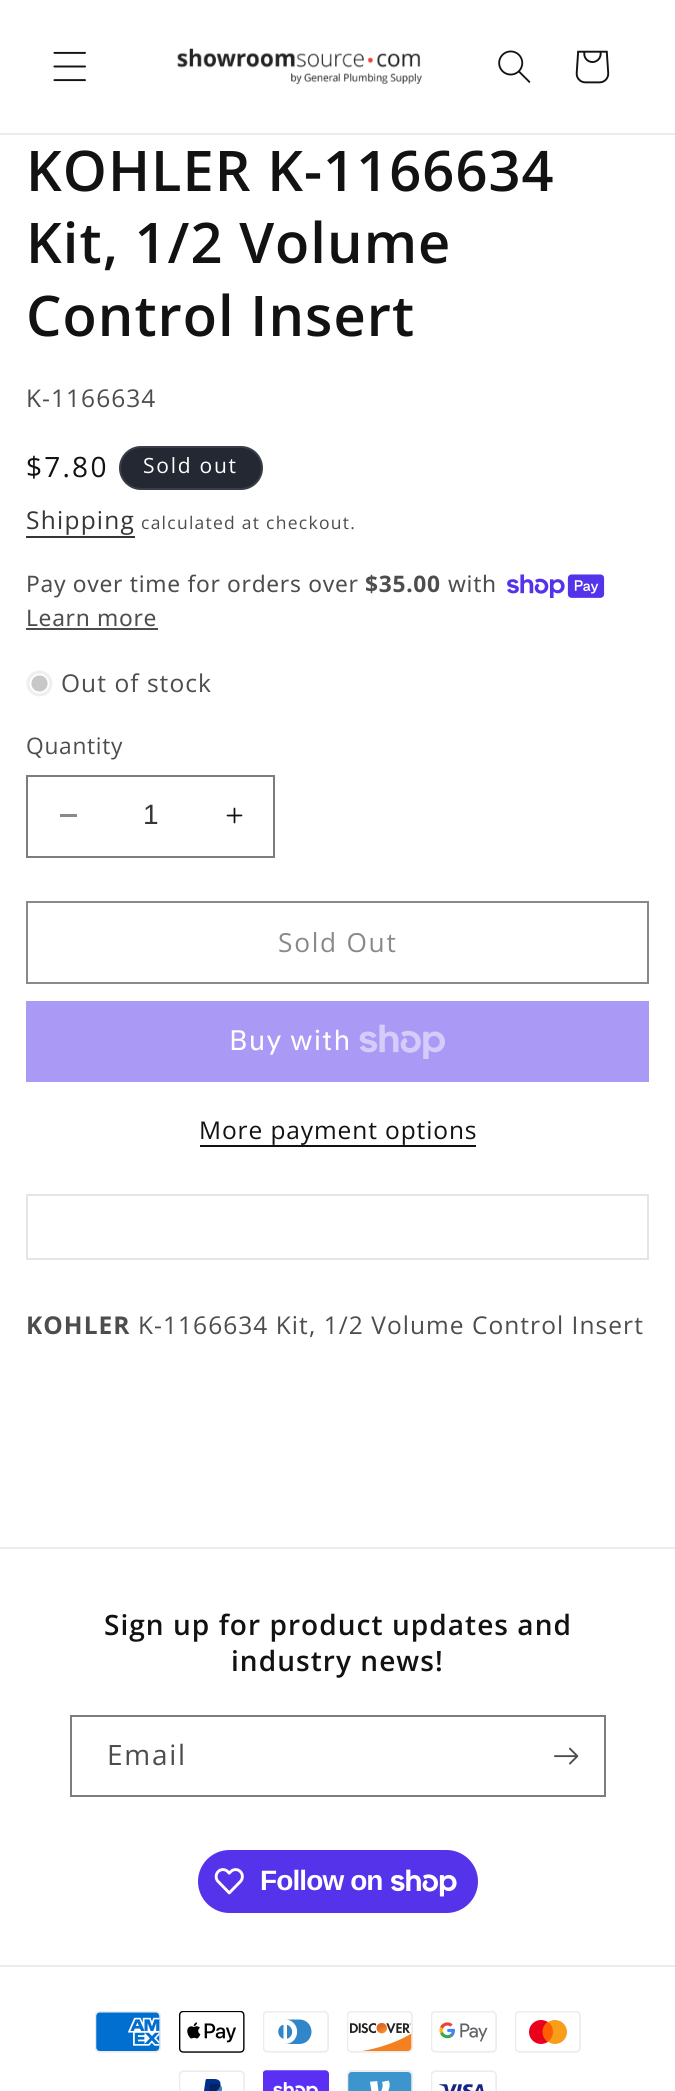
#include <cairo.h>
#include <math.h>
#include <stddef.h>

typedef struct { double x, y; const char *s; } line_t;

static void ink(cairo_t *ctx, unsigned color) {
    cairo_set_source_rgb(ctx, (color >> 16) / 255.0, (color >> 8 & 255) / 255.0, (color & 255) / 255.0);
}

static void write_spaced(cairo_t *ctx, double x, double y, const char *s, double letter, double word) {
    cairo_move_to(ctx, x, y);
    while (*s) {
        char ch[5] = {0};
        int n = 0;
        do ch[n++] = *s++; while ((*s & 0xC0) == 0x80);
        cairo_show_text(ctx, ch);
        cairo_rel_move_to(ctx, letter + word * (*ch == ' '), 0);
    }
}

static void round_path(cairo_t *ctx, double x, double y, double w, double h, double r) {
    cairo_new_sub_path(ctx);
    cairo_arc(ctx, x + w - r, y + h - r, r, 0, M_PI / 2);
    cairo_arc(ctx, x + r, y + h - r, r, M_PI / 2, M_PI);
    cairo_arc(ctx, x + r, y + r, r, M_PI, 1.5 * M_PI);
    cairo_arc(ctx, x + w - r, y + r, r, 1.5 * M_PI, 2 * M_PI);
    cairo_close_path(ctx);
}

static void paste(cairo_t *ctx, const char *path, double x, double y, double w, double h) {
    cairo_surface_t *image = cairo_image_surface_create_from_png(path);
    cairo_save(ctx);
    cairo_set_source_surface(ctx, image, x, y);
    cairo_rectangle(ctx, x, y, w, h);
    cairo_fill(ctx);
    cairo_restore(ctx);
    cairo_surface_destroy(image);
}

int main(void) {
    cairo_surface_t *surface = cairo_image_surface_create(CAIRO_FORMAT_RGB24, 675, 2091);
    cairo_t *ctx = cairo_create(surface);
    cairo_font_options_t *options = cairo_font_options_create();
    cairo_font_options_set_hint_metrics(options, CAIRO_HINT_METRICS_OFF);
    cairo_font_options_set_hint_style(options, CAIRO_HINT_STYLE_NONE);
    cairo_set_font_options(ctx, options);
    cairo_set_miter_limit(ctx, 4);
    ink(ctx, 0xFFFFFF);
    cairo_paint(ctx);
    ink(ctx, 0xECECEC);
    cairo_rectangle(ctx, 0, 133, 675, 2);
    cairo_fill(ctx);
    paste(ctx, "media/1.png", 53, 51, 33, 31);
    paste(ctx, "media/2.png", 177, 48, 245, 36);
    paste(ctx, "media/3.png", 498, 50, 33, 33);
    paste(ctx, "media/4.png", 575, 50, 35, 34);
    cairo_select_font_face(ctx, "Open Sans SemiBold", CAIRO_FONT_SLANT_NORMAL, CAIRO_FONT_WEIGHT_NORMAL);
    cairo_set_font_size(ctx, 56);
    ink(ctx, 0x121212);
    {
        static const line_t items[] = {
            {26, 191, "KOHLER K-1166634"},
            {26, 263, "Kit, 1/2 Volume"},
            {26, 336, "Control Insert"},
        };
        for (size_t i = 0; i < sizeof items / sizeof *items; i++) {
            write_spaced(ctx, items[i].x, items[i].y, items[i].s, 1.05, 0);
        }
    }
    cairo_select_font_face(ctx, "Open Sans", CAIRO_FONT_SLANT_NORMAL, CAIRO_FONT_WEIGHT_NORMAL);
    cairo_set_font_size(ctx, 24.5);
    ink(ctx, 0x4D4D4D);
    write_spaced(ctx, 26, 407, "K-1166634", 1.05, 0);
    cairo_set_font_size(ctx, 28);
    ink(ctx, 0x121212);
    write_spaced(ctx, 26, 477, "$7.80", 2.25, 0);
    ink(ctx, 0x242833);
    round_path(ctx, 119, 446, 144, 44, 22);
    cairo_fill(ctx);
    round_path(ctx, 120, 447, 142, 42, 21);
    cairo_set_source_rgba(ctx, 1, 1, 1, 0.1);
    cairo_stroke(ctx);
    cairo_set_font_size(ctx, 21);
    ink(ctx, 0xFFFFFF);
    write_spaced(ctx, 143, 473, "Sold out", 1.75, 0);
    cairo_set_font_size(ctx, 24.5);
    ink(ctx, 0x363636);
    write_spaced(ctx, 26, 529, "Shipping", 1.25, 0);
    cairo_rectangle(ctx, 26, 536, 109, 2);
    cairo_fill(ctx);
    cairo_set_font_size(ctx, 17.5);
    ink(ctx, 0x4D4D4D);
    write_spaced(ctx, 141, 529, "calculated at checkout.", 1.25, 0);
    cairo_select_font_face(ctx, "Noto Sans", CAIRO_FONT_SLANT_NORMAL, CAIRO_FONT_WEIGHT_NORMAL);
    cairo_set_font_size(ctx, 22.75);
    write_spaced(ctx, 26, 592, "Pay over time for orders over", 0.7, 0);
    cairo_select_font_face(ctx, "Noto Sans", CAIRO_FONT_SLANT_NORMAL, CAIRO_FONT_WEIGHT_BOLD);
    write_spaced(ctx, 365, 592, "$35.00", 0.7, 0);
    cairo_select_font_face(ctx, "Noto Sans", CAIRO_FONT_SLANT_NORMAL, CAIRO_FONT_WEIGHT_NORMAL);
    write_spaced(ctx, 448, 592, "with", 0.7, 0);
    paste(ctx, "media/5.png", 507, 574, 98, 24);
    write_spaced(ctx, 26, 626, "Learn more", 0.7, 0);
    cairo_rectangle(ctx, 26, 628, 132, 2);
    cairo_fill(ctx);
    ink(ctx, 0xEFEFEF);
    cairo_arc(ctx, 39.5, 683.5, 13, 0, 2 * M_PI);
    cairo_fill(ctx);
    ink(ctx, 0xC8C8C8);
    cairo_arc(ctx, 39.5, 683.5, 9, 0, 2 * M_PI);
    cairo_fill_preserve(ctx);
    ink(ctx, 0xFFFFFF);
    cairo_set_line_width(ctx, 1.8);
    cairo_stroke(ctx);
    cairo_select_font_face(ctx, "Open Sans", CAIRO_FONT_SLANT_NORMAL, CAIRO_FONT_WEIGHT_NORMAL);
    cairo_set_font_size(ctx, 24.5);
    ink(ctx, 0x4D4D4D);
    write_spaced(ctx, 61, 692, "Out of stock", 1.05, 0);
    cairo_set_font_size(ctx, 22.75);
    write_spaced(ctx, 26, 754, "Quantity", 0.7, 0);
    ink(ctx, 0x898989);
    cairo_rectangle(ctx, 60, 814, 17, 3);
    cairo_fill(ctx);
    paste(ctx, "media/6.png", 226, 807, 17, 17);
    cairo_rectangle(ctx, 27, 776, 247, 81);
    ink(ctx, 0x7D7D7D);
    cairo_set_line_width(ctx, 2);
    cairo_stroke(ctx);
    cairo_select_font_face(ctx, "Liberation Sans", CAIRO_FONT_SLANT_NORMAL, CAIRO_FONT_WEIGHT_NORMAL);
    cairo_set_font_size(ctx, 28);
    ink(ctx, 0x363636);
    cairo_move_to(ctx, 143, 824);
    cairo_show_text(ctx, "1");
    cairo_rectangle(ctx, 27, 902, 621, 81);
    ink(ctx, 0x898989);
    cairo_stroke(ctx);
    cairo_select_font_face(ctx, "Open Sans", CAIRO_FONT_SLANT_NORMAL, CAIRO_FONT_WEIGHT_NORMAL);
    cairo_set_font_size(ctx, 26.25);
    write_spaced(ctx, 278, 952, "Sold Out", 1.75, 0);
    ink(ctx, 0xAA99F5);
    cairo_rectangle(ctx, 26, 1001, 623, 81);
    cairo_fill(ctx);
    cairo_select_font_face(ctx, "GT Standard", CAIRO_FONT_SLANT_NORMAL, CAIRO_FONT_WEIGHT_NORMAL);
    cairo_set_font_size(ctx, 28);
    ink(ctx, 0xFFFFFF);
    write_spaced(ctx, 229, 1050, "Buy with", 1.05, 0);
    paste(ctx, "media/7.png", 359, 1024, 86, 35);
    cairo_select_font_face(ctx, "Open Sans", CAIRO_FONT_SLANT_NORMAL, CAIRO_FONT_WEIGHT_NORMAL);
    cairo_set_font_size(ctx, 24.5);
    ink(ctx, 0x121212);
    write_spaced(ctx, 199, 1139, "More payment options", 0.9, 0);
    cairo_rectangle(ctx, 200, 1145, 276, 2);
    cairo_fill(ctx);
    cairo_rectangle(ctx, 27, 1195, 621, 64);
    ink(ctx, 0xE5E5E5);
    cairo_stroke(ctx);
    cairo_select_font_face(ctx, "Open Sans", CAIRO_FONT_SLANT_NORMAL, CAIRO_FONT_WEIGHT_BOLD);
    ink(ctx, 0x4D4D4D);
    write_spaced(ctx, 26, 1334, "KOHLER", 1.05, 0);
    cairo_select_font_face(ctx, "Open Sans", CAIRO_FONT_SLANT_NORMAL, CAIRO_FONT_WEIGHT_NORMAL);
    write_spaced(ctx, 138, 1334, "K-1166634 Kit, 1/2 Volume Control Insert", 1.05, 0);
    ink(ctx, 0xECECEC);
    cairo_rectangle(ctx, 0, 1547, 675, 2);
    cairo_fill(ctx);
    cairo_select_font_face(ctx, "Open Sans SemiBold", CAIRO_FONT_SLANT_NORMAL, CAIRO_FONT_WEIGHT_NORMAL);
    cairo_set_font_size(ctx, 28);
    ink(ctx, 0x121212);
    write_spaced(ctx, 104, 1635, "Sign up for product updates and", 1.05, 0);
    write_spaced(ctx, 231, 1671, "industry news!", 1.05, 0);
    cairo_rectangle(ctx, 71, 1716, 534, 80);
    ink(ctx, 0x7D7D7D);
    cairo_stroke(ctx);
    cairo_select_font_face(ctx, "Open Sans", CAIRO_FONT_SLANT_NORMAL, CAIRO_FONT_WEIGHT_NORMAL);
    ink(ctx, 0x4D4D4D);
    write_spaced(ctx, 107, 1765, "Email", 1.75, 0);
    paste(ctx, "media/8.png", 554, 1747, 25, 18);
    ink(ctx, 0x5433EB);
    round_path(ctx, 198, 1850, 280, 63, 31.5);
    cairo_fill(ctx);
    paste(ctx, "media/9.png", 214, 1868, 30, 27);
    cairo_select_font_face(ctx, "Liberation Sans", CAIRO_FONT_SLANT_NORMAL, CAIRO_FONT_WEIGHT_BOLD);
    ink(ctx, 0xFFFFFF);
    write_spaced(ctx, 260, 1890, "Follow on", -0.9, 0);
    paste(ctx, "media/10.png", 391, 1869, 66, 28);
    ink(ctx, 0xECECEC);
    cairo_rectangle(ctx, 0, 1965, 675, 2);
    cairo_fill(ctx);
    paste(ctx, "media/11.png", 95, 2011, 66, 42);
    paste(ctx, "media/12.png", 179, 2011, 66, 42);
    paste(ctx, "media/13.png", 263, 2011, 66, 42);
    paste(ctx, "media/14.png", 347, 2011, 66, 42);
    paste(ctx, "media/15.png", 431, 2011, 66, 42);
    paste(ctx, "media/16.png", 515, 2011, 66, 42);
    paste(ctx, "media/17.png", 179, 2070, 66, 21);
    paste(ctx, "media/18.png", 263, 2070, 66, 21);
    paste(ctx, "media/19.png", 347, 2070, 66, 21);
    paste(ctx, "media/20.png", 431, 2070, 66, 21);
    cairo_surface_write_to_png(surface, "image.png");
    cairo_font_options_destroy(options);
    cairo_destroy(ctx);
    cairo_surface_destroy(surface);
    return 0;
}
